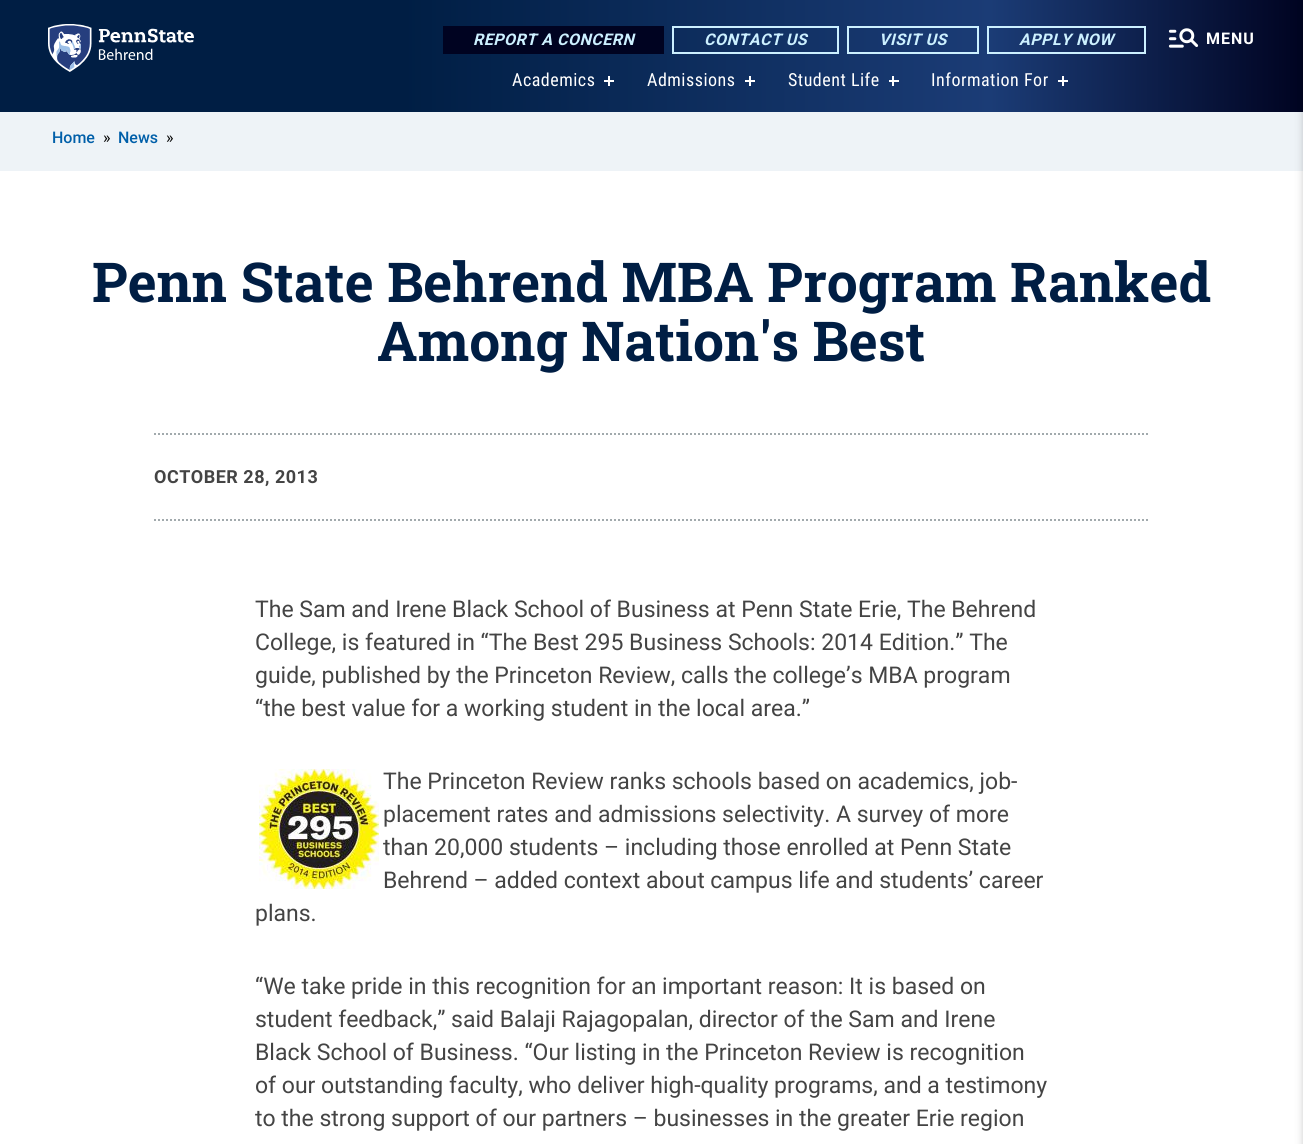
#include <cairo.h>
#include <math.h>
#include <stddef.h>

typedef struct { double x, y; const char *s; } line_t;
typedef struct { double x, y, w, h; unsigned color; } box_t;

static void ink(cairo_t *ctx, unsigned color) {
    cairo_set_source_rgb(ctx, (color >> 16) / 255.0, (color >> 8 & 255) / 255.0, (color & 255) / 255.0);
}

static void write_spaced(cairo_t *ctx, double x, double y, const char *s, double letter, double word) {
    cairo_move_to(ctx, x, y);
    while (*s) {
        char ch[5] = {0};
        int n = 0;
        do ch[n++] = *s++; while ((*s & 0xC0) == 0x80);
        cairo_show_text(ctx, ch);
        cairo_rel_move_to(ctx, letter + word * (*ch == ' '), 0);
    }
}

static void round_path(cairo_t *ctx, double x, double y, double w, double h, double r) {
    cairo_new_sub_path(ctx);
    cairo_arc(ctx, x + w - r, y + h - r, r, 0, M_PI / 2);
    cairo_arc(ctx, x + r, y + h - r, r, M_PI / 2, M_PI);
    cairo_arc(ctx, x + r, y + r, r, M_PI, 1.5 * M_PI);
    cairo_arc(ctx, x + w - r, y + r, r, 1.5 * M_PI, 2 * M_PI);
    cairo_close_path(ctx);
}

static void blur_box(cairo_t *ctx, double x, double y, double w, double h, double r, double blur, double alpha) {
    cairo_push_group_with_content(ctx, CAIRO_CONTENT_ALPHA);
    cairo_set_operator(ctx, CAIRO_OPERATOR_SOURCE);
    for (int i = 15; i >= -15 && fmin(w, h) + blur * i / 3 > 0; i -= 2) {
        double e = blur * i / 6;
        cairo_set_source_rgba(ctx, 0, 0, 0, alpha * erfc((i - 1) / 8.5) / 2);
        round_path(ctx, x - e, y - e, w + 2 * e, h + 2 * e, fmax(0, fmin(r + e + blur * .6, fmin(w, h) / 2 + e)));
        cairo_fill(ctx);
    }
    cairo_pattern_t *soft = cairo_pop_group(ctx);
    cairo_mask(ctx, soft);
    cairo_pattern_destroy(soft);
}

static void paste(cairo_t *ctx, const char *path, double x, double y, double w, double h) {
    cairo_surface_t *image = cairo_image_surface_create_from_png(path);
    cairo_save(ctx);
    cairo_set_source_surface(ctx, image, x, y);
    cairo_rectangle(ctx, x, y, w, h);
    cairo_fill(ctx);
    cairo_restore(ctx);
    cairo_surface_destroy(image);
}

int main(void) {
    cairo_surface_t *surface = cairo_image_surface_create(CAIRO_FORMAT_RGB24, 1303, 1144);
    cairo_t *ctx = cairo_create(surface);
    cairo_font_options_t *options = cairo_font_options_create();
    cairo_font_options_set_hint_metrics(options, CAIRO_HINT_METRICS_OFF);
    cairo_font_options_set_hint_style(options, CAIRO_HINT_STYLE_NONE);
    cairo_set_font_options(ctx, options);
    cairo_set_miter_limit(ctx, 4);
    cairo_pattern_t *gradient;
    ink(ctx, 0xFFFFFF);
    cairo_paint(ctx);
    gradient = cairo_pattern_create_linear(0, 56, 1303, 56);
    cairo_pattern_add_color_stop_rgba(gradient, 0, 0, 0.118, 0.267, 1);
    cairo_pattern_add_color_stop_rgba(gradient, 0.31, 0, 0.118, 0.267, 1);
    cairo_pattern_add_color_stop_rgba(gradient, 0.76, 0.106, 0.235, 0.463, 1);
    cairo_pattern_add_color_stop_rgba(gradient, 1, 0, 0.012, 0.129, 1);
    cairo_set_source(ctx, gradient);
    cairo_pattern_destroy(gradient);
    cairo_rectangle(ctx, 0, 0, 1303, 112);
    cairo_fill(ctx);
    paste(ctx, "media/1.png", 48, 24, 146, 48);
    ink(ctx, 0x000321);
    cairo_rectangle(ctx, 443, 26, 221, 28);
    cairo_fill(ctx);
    cairo_select_font_face(ctx, "Roboto", CAIRO_FONT_SLANT_ITALIC, CAIRO_FONT_WEIGHT_BOLD);
    cairo_set_font_size(ctx, 16);
    ink(ctx, 0xCCF0FF);
    write_spaced(ctx, 473, 45, "REPORT A CONCERN", 0.5, 0);
    cairo_rectangle(ctx, 673, 27, 165, 26);
    cairo_stroke(ctx);
    write_spaced(ctx, 704, 45, "CONTACT US", 0.5, 0);
    cairo_rectangle(ctx, 848, 27, 130, 26);
    cairo_stroke(ctx);
    write_spaced(ctx, 879, 45, "VISIT US", 0.5, 0);
    cairo_rectangle(ctx, 988, 27, 157, 26);
    cairo_stroke(ctx);
    write_spaced(ctx, 1019, 45, "APPLY NOW", 0.5, 0);
    paste(ctx, "media/2.png", 1168, 28, 31, 20);
    cairo_select_font_face(ctx, "Roboto", CAIRO_FONT_SLANT_NORMAL, CAIRO_FONT_WEIGHT_BOLD);
    ink(ctx, 0xFFFFFF);
    write_spaced(ctx, 1206, 44, "MENU", 1, 0);
    cairo_select_font_face(ctx, "Roboto Condensed", CAIRO_FONT_SLANT_NORMAL, CAIRO_FONT_WEIGHT_NORMAL);
    cairo_set_font_size(ctx, 18);
    write_spaced(ctx, 512, 86, "Academics", 0.5, 0);
    cairo_rectangle(ctx, 604, 80, 10, 2);
    cairo_fill(ctx);
    cairo_rectangle(ctx, 608, 76, 2, 10);
    cairo_fill(ctx);
    write_spaced(ctx, 647, 86, "Admissions", 0.5, 0);
    cairo_rectangle(ctx, 745, 80, 10, 2);
    cairo_fill(ctx);
    cairo_rectangle(ctx, 749, 76, 2, 10);
    cairo_fill(ctx);
    write_spaced(ctx, 788, 86, "Student Life", 0.5, 0);
    cairo_rectangle(ctx, 889, 80, 10, 2);
    cairo_fill(ctx);
    cairo_rectangle(ctx, 892, 76, 2, 10);
    cairo_fill(ctx);
    write_spaced(ctx, 931, 86, "Information For", 0.5, 0);
    {
        static const box_t items[] = {
            {1058, 80, 10, 2, 0xFFFFFF},
            {1062, 76, 2, 10, 0xFFFFFF},
            {0, 112, 1303, 59, 0xEEF3F7},
        };
        for (size_t i = 0; i < sizeof items / sizeof *items; i++) {
            ink(ctx, items[i].color);
            cairo_rectangle(ctx, items[i].x, items[i].y, items[i].w, items[i].h);
            cairo_fill(ctx);
        }
    }
    ink(ctx, 0x000000);
    blur_box(ctx, 1303, 4, 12, 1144, 0, 4, 0.2);
    cairo_select_font_face(ctx, "Roboto Medium", CAIRO_FONT_SLANT_NORMAL, CAIRO_FONT_WEIGHT_NORMAL);
    cairo_set_font_size(ctx, 16);
    ink(ctx, 0x005FA9);
    cairo_move_to(ctx, 52, 143);
    cairo_show_text(ctx, "Home");
    cairo_select_font_face(ctx, "Roboto", CAIRO_FONT_SLANT_NORMAL, CAIRO_FONT_WEIGHT_NORMAL);
    ink(ctx, 0x000000);
    cairo_move_to(ctx, 103, 143);
    cairo_show_text(ctx, "»");
    cairo_select_font_face(ctx, "Roboto Medium", CAIRO_FONT_SLANT_NORMAL, CAIRO_FONT_WEIGHT_NORMAL);
    ink(ctx, 0x005FA9);
    cairo_move_to(ctx, 118, 143);
    cairo_show_text(ctx, "News");
    cairo_select_font_face(ctx, "Roboto", CAIRO_FONT_SLANT_NORMAL, CAIRO_FONT_WEIGHT_NORMAL);
    ink(ctx, 0x000000);
    cairo_move_to(ctx, 166, 143);
    cairo_show_text(ctx, "»");
    cairo_select_font_face(ctx, "Roboto Slab", CAIRO_FONT_SLANT_NORMAL, CAIRO_FONT_WEIGHT_BOLD);
    cairo_set_font_size(ctx, 55);
    ink(ctx, 0x001E44);
    write_spaced(ctx, 92, 302, "Penn State Behrend MBA Program Ranked", 0.05, 0);
    write_spaced(ctx, 377, 361, "Among Nation's Best", 0.05, 0);
    cairo_new_path(ctx);
    cairo_move_to(ctx, 154, 434);
    cairo_line_to(ctx, 1149, 434);
    ink(ctx, 0xA2AAAD);
    cairo_set_dash(ctx, (double[]){2, 2}, 2, 0);
    cairo_stroke(ctx);
    cairo_new_path(ctx);
    cairo_move_to(ctx, 154, 520);
    cairo_line_to(ctx, 1149, 520);
    cairo_stroke(ctx);
    cairo_select_font_face(ctx, "Roboto", CAIRO_FONT_SLANT_NORMAL, CAIRO_FONT_WEIGHT_BOLD);
    cairo_set_font_size(ctx, 18);
    ink(ctx, 0x444444);
    write_spaced(ctx, 154, 483, "OCTOBER 28, 2013", 0.5, 0);
    cairo_select_font_face(ctx, "Roboto", CAIRO_FONT_SLANT_NORMAL, CAIRO_FONT_WEIGHT_NORMAL);
    cairo_set_font_size(ctx, 23);
    {
        static const line_t items[] = {
            {255, 617, "The Sam and Irene Black School of Business at Penn State Erie, The Behrend"},
            {255, 650, "College, is featured in “The Best 295 Business Schools: 2014 Edition.” The"},
            {255, 683, "guide, published by the Princeton Review, calls the college’s MBA program"},
            {255, 716, "“the best value for a working student in the local area.”"},
        };
        for (size_t i = 0; i < sizeof items / sizeof *items; i++) {
            cairo_move_to(ctx, items[i].x, items[i].y);
            cairo_show_text(ctx, items[i].s);
        }
    }
    paste(ctx, "media/3.png", 259, 769, 120, 120);
    {
        static const line_t items[] = {
            {383, 789, "The Princeton Review ranks schools based on academics, job-"},
            {383, 822, "placement rates and admissions selectivity. A survey of more"},
            {383, 855, "than 20,000 students – including those enrolled at Penn State"},
            {383, 888, "Behrend – added context about campus life and students’ career"},
            {255, 921, "plans."},
            {255, 994, "“We take pride in this recognition for an important reason: It is based on"},
            {255, 1027, "student feedback,” said Balaji Rajagopalan, director of the Sam and Irene"},
            {255, 1060, "Black School of Business. “Our listing in the Princeton Review is recognition"},
            {255, 1093, "of our outstanding faculty, who deliver high-quality programs, and a testimony"},
            {255, 1126, "to the strong support of our partners – businesses in the greater Erie region"},
        };
        for (size_t i = 0; i < sizeof items / sizeof *items; i++) {
            cairo_move_to(ctx, items[i].x, items[i].y);
            cairo_show_text(ctx, items[i].s);
        }
    }
    cairo_surface_write_to_png(surface, "image.png");
    cairo_font_options_destroy(options);
    cairo_destroy(ctx);
    cairo_surface_destroy(surface);
    return 0;
}
